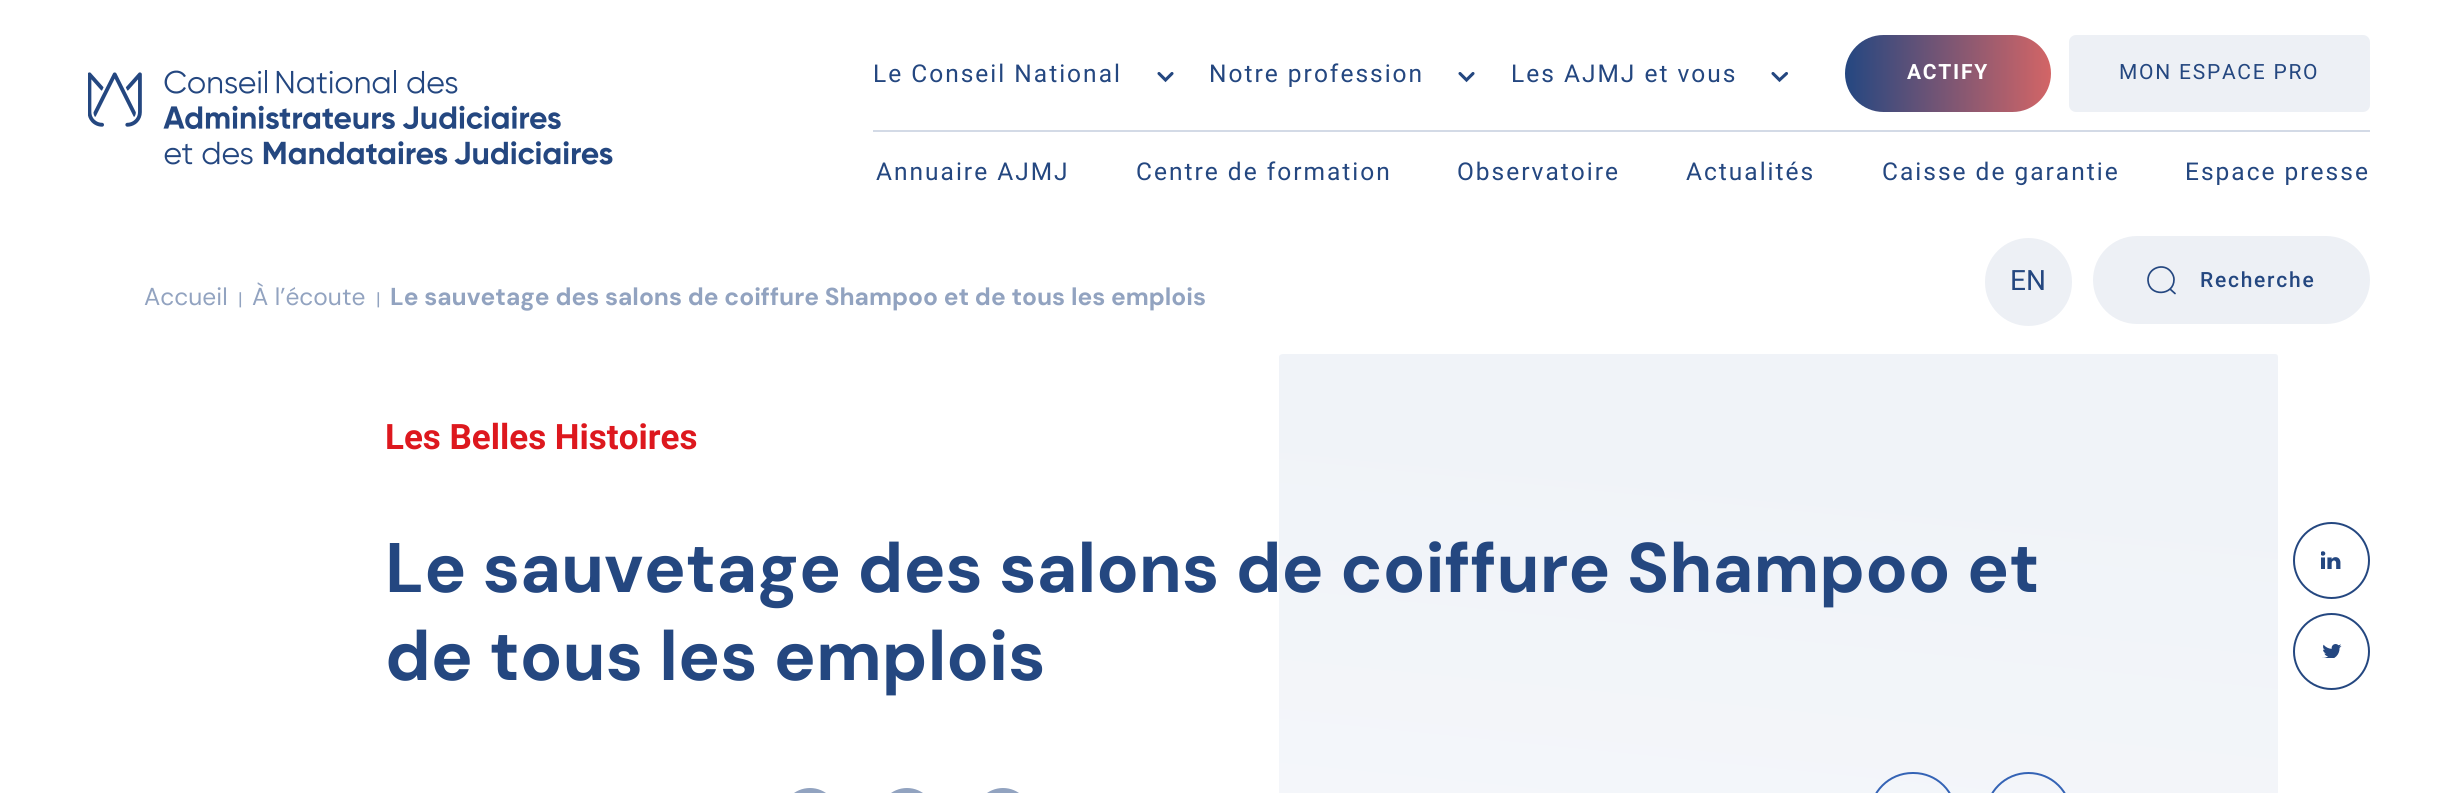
#include <cairo.h>
#include <math.h>
#include <stddef.h>

typedef struct { double x, y; const char *s; } line_t;

static void ink(cairo_t *ctx, unsigned color) {
    cairo_set_source_rgb(ctx, (color >> 16) / 255.0, (color >> 8 & 255) / 255.0, (color & 255) / 255.0);
}

static void write_spaced(cairo_t *ctx, double x, double y, const char *s, double letter, double word) {
    cairo_move_to(ctx, x, y);
    while (*s) {
        char ch[5] = {0};
        int n = 0;
        do ch[n++] = *s++; while ((*s & 0xC0) == 0x80);
        cairo_show_text(ctx, ch);
        cairo_rel_move_to(ctx, letter + word * (*ch == ' '), 0);
    }
}

static void round_path(cairo_t *ctx, double x, double y, double w, double h, double r) {
    cairo_new_sub_path(ctx);
    cairo_arc(ctx, x + w - r, y + h - r, r, 0, M_PI / 2);
    cairo_arc(ctx, x + r, y + h - r, r, M_PI / 2, M_PI);
    cairo_arc(ctx, x + r, y + r, r, M_PI, 1.5 * M_PI);
    cairo_arc(ctx, x + w - r, y + r, r, 1.5 * M_PI, 2 * M_PI);
    cairo_close_path(ctx);
}

static void paste(cairo_t *ctx, const char *path, double x, double y, double w, double h) {
    cairo_surface_t *image = cairo_image_surface_create_from_png(path);
    cairo_save(ctx);
    cairo_set_source_surface(ctx, image, x, y);
    cairo_rectangle(ctx, x, y, w, h);
    cairo_fill(ctx);
    cairo_restore(ctx);
    cairo_surface_destroy(image);
}

int main(void) {
    cairo_surface_t *surface = cairo_image_surface_create(CAIRO_FORMAT_RGB24, 2456, 793);
    cairo_t *ctx = cairo_create(surface);
    cairo_font_options_t *options = cairo_font_options_create();
    cairo_font_options_set_hint_metrics(options, CAIRO_HINT_METRICS_OFF);
    cairo_font_options_set_hint_style(options, CAIRO_HINT_STYLE_NONE);
    cairo_set_font_options(ctx, options);
    cairo_set_miter_limit(ctx, 4);
    cairo_pattern_t *gradient;
    ink(ctx, 0xFFFFFF);
    cairo_paint(ctx);
    paste(ctx, "media/1.png", 88, 70, 525, 95);
    ink(ctx, 0xD3DAE6);
    cairo_rectangle(ctx, 873, 130, 1497, 2);
    cairo_fill(ctx);
    cairo_select_font_face(ctx, "Roboto", CAIRO_FONT_SLANT_NORMAL, CAIRO_FONT_WEIGHT_NORMAL);
    cairo_set_font_size(ctx, 24.5);
    ink(ctx, 0x244780);
    write_spaced(ctx, 873, 82, "Le Conseil National", 2, 0);
    cairo_new_path(ctx);
    cairo_move_to(ctx, 1172, 73.5);
    cairo_line_to(ctx, 1165.5, 80);
    cairo_line_to(ctx, 1159, 73.5);
    cairo_set_line_width(ctx, 3.1);
    cairo_set_line_cap(ctx, CAIRO_LINE_CAP_ROUND);
    cairo_stroke(ctx);
    write_spaced(ctx, 1209, 82, "Notre profession", 2, 0);
    cairo_new_path(ctx);
    cairo_move_to(ctx, 1473, 73.5);
    cairo_line_to(ctx, 1466.5, 80);
    cairo_line_to(ctx, 1460, 73.5);
    cairo_stroke(ctx);
    write_spaced(ctx, 1511, 82, "Les AJMJ et vous", 2, 0);
    cairo_new_path(ctx);
    cairo_move_to(ctx, 1786.5, 73.5);
    cairo_line_to(ctx, 1779.5, 80);
    cairo_line_to(ctx, 1773, 73.5);
    cairo_stroke(ctx);
    gradient = cairo_pattern_create_linear(1845, 74, 2051, 73);
    cairo_pattern_add_color_stop_rgba(gradient, 0, 0.141, 0.278, 0.506, 1);
    cairo_pattern_add_color_stop_rgba(gradient, 1, 0.827, 0.396, 0.4, 1);
    cairo_set_source(ctx, gradient);
    cairo_pattern_destroy(gradient);
    round_path(ctx, 1845, 35, 206, 77, 38.5);
    cairo_fill(ctx);
    cairo_select_font_face(ctx, "Roboto", CAIRO_FONT_SLANT_NORMAL, CAIRO_FONT_WEIGHT_BOLD);
    cairo_set_font_size(ctx, 21);
    ink(ctx, 0xFFFFFF);
    write_spaced(ctx, 1907, 79, "ACTIFY", 1.75, 0);
    ink(ctx, 0xEDF0F5);
    round_path(ctx, 2069, 35, 301, 77, 7);
    cairo_fill(ctx);
    cairo_select_font_face(ctx, "Roboto", CAIRO_FONT_SLANT_NORMAL, CAIRO_FONT_WEIGHT_NORMAL);
    ink(ctx, 0x244780);
    write_spaced(ctx, 2119, 79, "MON ESPACE PRO", 1.75, 0);
    cairo_set_font_size(ctx, 24.5);
    {
        static const line_t items[] = {
            {876, 180, "Annuaire AJMJ"},
            {1136, 180, "Centre de formation"},
            {1457, 180, "Observatoire"},
            {1686, 180, "Actualités"},
            {1882, 180, "Caisse de garantie"},
            {2185, 180, "Espace presse"},
        };
        for (size_t i = 0; i < sizeof items / sizeof *items; i++) {
            write_spaced(ctx, items[i].x, items[i].y, items[i].s, 2, 0);
        }
    }
    ink(ctx, 0xEDF0F5);
    round_path(ctx, 1985, 238, 87, 88, 43.5);
    cairo_fill(ctx);
    cairo_set_font_size(ctx, 28);
    ink(ctx, 0x244780);
    cairo_move_to(ctx, 2010, 290);
    cairo_show_text(ctx, "EN");
    ink(ctx, 0xEDF0F5);
    round_path(ctx, 2093, 236, 277, 88, 44);
    cairo_fill(ctx);
    cairo_new_path(ctx);
    cairo_move_to(ctx, 2174, 279.5);
    cairo_curve_to(ctx, 2174, 296, 2149, 297, 2148, 280.5);
    cairo_curve_to(ctx, 2147.5, 267.5, 2164.5, 262, 2171.5, 272.5);
    cairo_curve_to(ctx, 2173, 274.5, 2174, 277, 2174, 279.5);
    cairo_close_path(ctx);
    cairo_move_to(ctx, 2175, 293.5);
    cairo_line_to(ctx, 2170, 289);
    ink(ctx, 0x244780);
    cairo_set_line_width(ctx, 1.7);
    cairo_set_line_join(ctx, CAIRO_LINE_JOIN_ROUND);
    cairo_stroke(ctx);
    cairo_select_font_face(ctx, "Roboto Medium", CAIRO_FONT_SLANT_NORMAL, CAIRO_FONT_WEIGHT_NORMAL);
    cairo_set_font_size(ctx, 21);
    write_spaced(ctx, 2200, 287, "Recherche", 1.75, 0);
    cairo_select_font_face(ctx, "DM Sans", CAIRO_FONT_SLANT_NORMAL, CAIRO_FONT_WEIGHT_NORMAL);
    cairo_set_font_size(ctx, 24.5);
    ink(ctx, 0x92A3C0);
    cairo_move_to(ctx, 144, 305);
    cairo_show_text(ctx, "Accueil");
    cairo_select_font_face(ctx, "Roboto", CAIRO_FONT_SLANT_NORMAL, CAIRO_FONT_WEIGHT_BOLD);
    cairo_set_font_size(ctx, 18);
    cairo_move_to(ctx, 238, 305);
    cairo_show_text(ctx, "|");
    cairo_select_font_face(ctx, "DM Sans", CAIRO_FONT_SLANT_NORMAL, CAIRO_FONT_WEIGHT_NORMAL);
    cairo_set_font_size(ctx, 24.5);
    cairo_move_to(ctx, 252, 305);
    cairo_show_text(ctx, "À l’écoute");
    cairo_select_font_face(ctx, "Roboto", CAIRO_FONT_SLANT_NORMAL, CAIRO_FONT_WEIGHT_BOLD);
    cairo_set_font_size(ctx, 18);
    cairo_move_to(ctx, 376, 305);
    cairo_show_text(ctx, "|");
    cairo_select_font_face(ctx, "DM Sans", CAIRO_FONT_SLANT_NORMAL, CAIRO_FONT_WEIGHT_BOLD);
    cairo_set_font_size(ctx, 24.5);
    cairo_move_to(ctx, 390, 305);
    cairo_show_text(ctx, "Le sauvetage des salons de coiffure Shampoo et de tous les emplois");
    gradient = cairo_pattern_create_linear(1717, 440, 1562, 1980);
    cairo_pattern_add_color_stop_rgba(gradient, 0, 0.941, 0.953, 0.973, 1);
    cairo_pattern_add_color_stop_rgba(gradient, 1, 1, 1, 1, 1);
    cairo_set_source(ctx, gradient);
    cairo_pattern_destroy(gradient);
    cairo_new_path(ctx);
    cairo_move_to(ctx, 1779, 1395);
    cairo_curve_to(ctx, 2055, 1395, 2278, 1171, 2278, 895);
    cairo_line_to(ctx, 2278, 357);
    cairo_curve_to(ctx, 2278, 355, 2277, 354, 2275, 354);
    cairo_line_to(ctx, 1283, 354);
    cairo_curve_to(ctx, 1281, 354, 1279, 355, 1279, 357);
    cairo_line_to(ctx, 1279, 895);
    cairo_curve_to(ctx, 1279, 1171, 1503, 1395, 1779, 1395);
    cairo_close_path(ctx);
    cairo_fill(ctx);
    cairo_select_font_face(ctx, "Roboto", CAIRO_FONT_SLANT_NORMAL, CAIRO_FONT_WEIGHT_BOLD);
    cairo_set_font_size(ctx, 35);
    ink(ctx, 0xDD181E);
    cairo_move_to(ctx, 385, 449);
    cairo_show_text(ctx, "Les Belles Histoires");
    cairo_select_font_face(ctx, "DM Sans", CAIRO_FONT_SLANT_NORMAL, CAIRO_FONT_WEIGHT_BOLD);
    cairo_set_font_size(ctx, 70);
    ink(ctx, 0x244780);
    cairo_move_to(ctx, 385, 592);
    cairo_show_text(ctx, "Le sauvetage des salons de coiffure Shampoo et");
    cairo_move_to(ctx, 385, 680);
    cairo_show_text(ctx, "de tous les emplois");
    ink(ctx, 0x92A3C0);
    round_path(ctx, 782, 788, 56, 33, 28);
    cairo_fill(ctx);
    round_path(ctx, 879, 788, 56, 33, 28);
    cairo_fill(ctx);
    round_path(ctx, 975, 788, 56, 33, 28);
    cairo_fill(ctx);
    round_path(ctx, 1870, 773, 86, 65, 42.5);
    ink(ctx, 0x3463B5);
    cairo_set_line_width(ctx, 2);
    cairo_set_line_cap(ctx, CAIRO_LINE_CAP_BUTT);
    cairo_set_line_join(ctx, CAIRO_LINE_JOIN_MITER);
    cairo_stroke(ctx);
    round_path(ctx, 1986, 773, 85, 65, 42.5);
    cairo_stroke(ctx);
    cairo_arc(ctx, 2331.5, 560.5, 37.5, 0, 2 * M_PI);
    ink(ctx, 0x244780);
    cairo_stroke(ctx);
    paste(ctx, "media/2.png", 2321, 551, 20, 18);
    cairo_arc(ctx, 2331.5, 651.5, 37.5, 0, 2 * M_PI);
    cairo_stroke(ctx);
    paste(ctx, "media/3.png", 2322, 644, 20, 14);
    cairo_surface_write_to_png(surface, "image.png");
    cairo_font_options_destroy(options);
    cairo_destroy(ctx);
    cairo_surface_destroy(surface);
    return 0;
}
